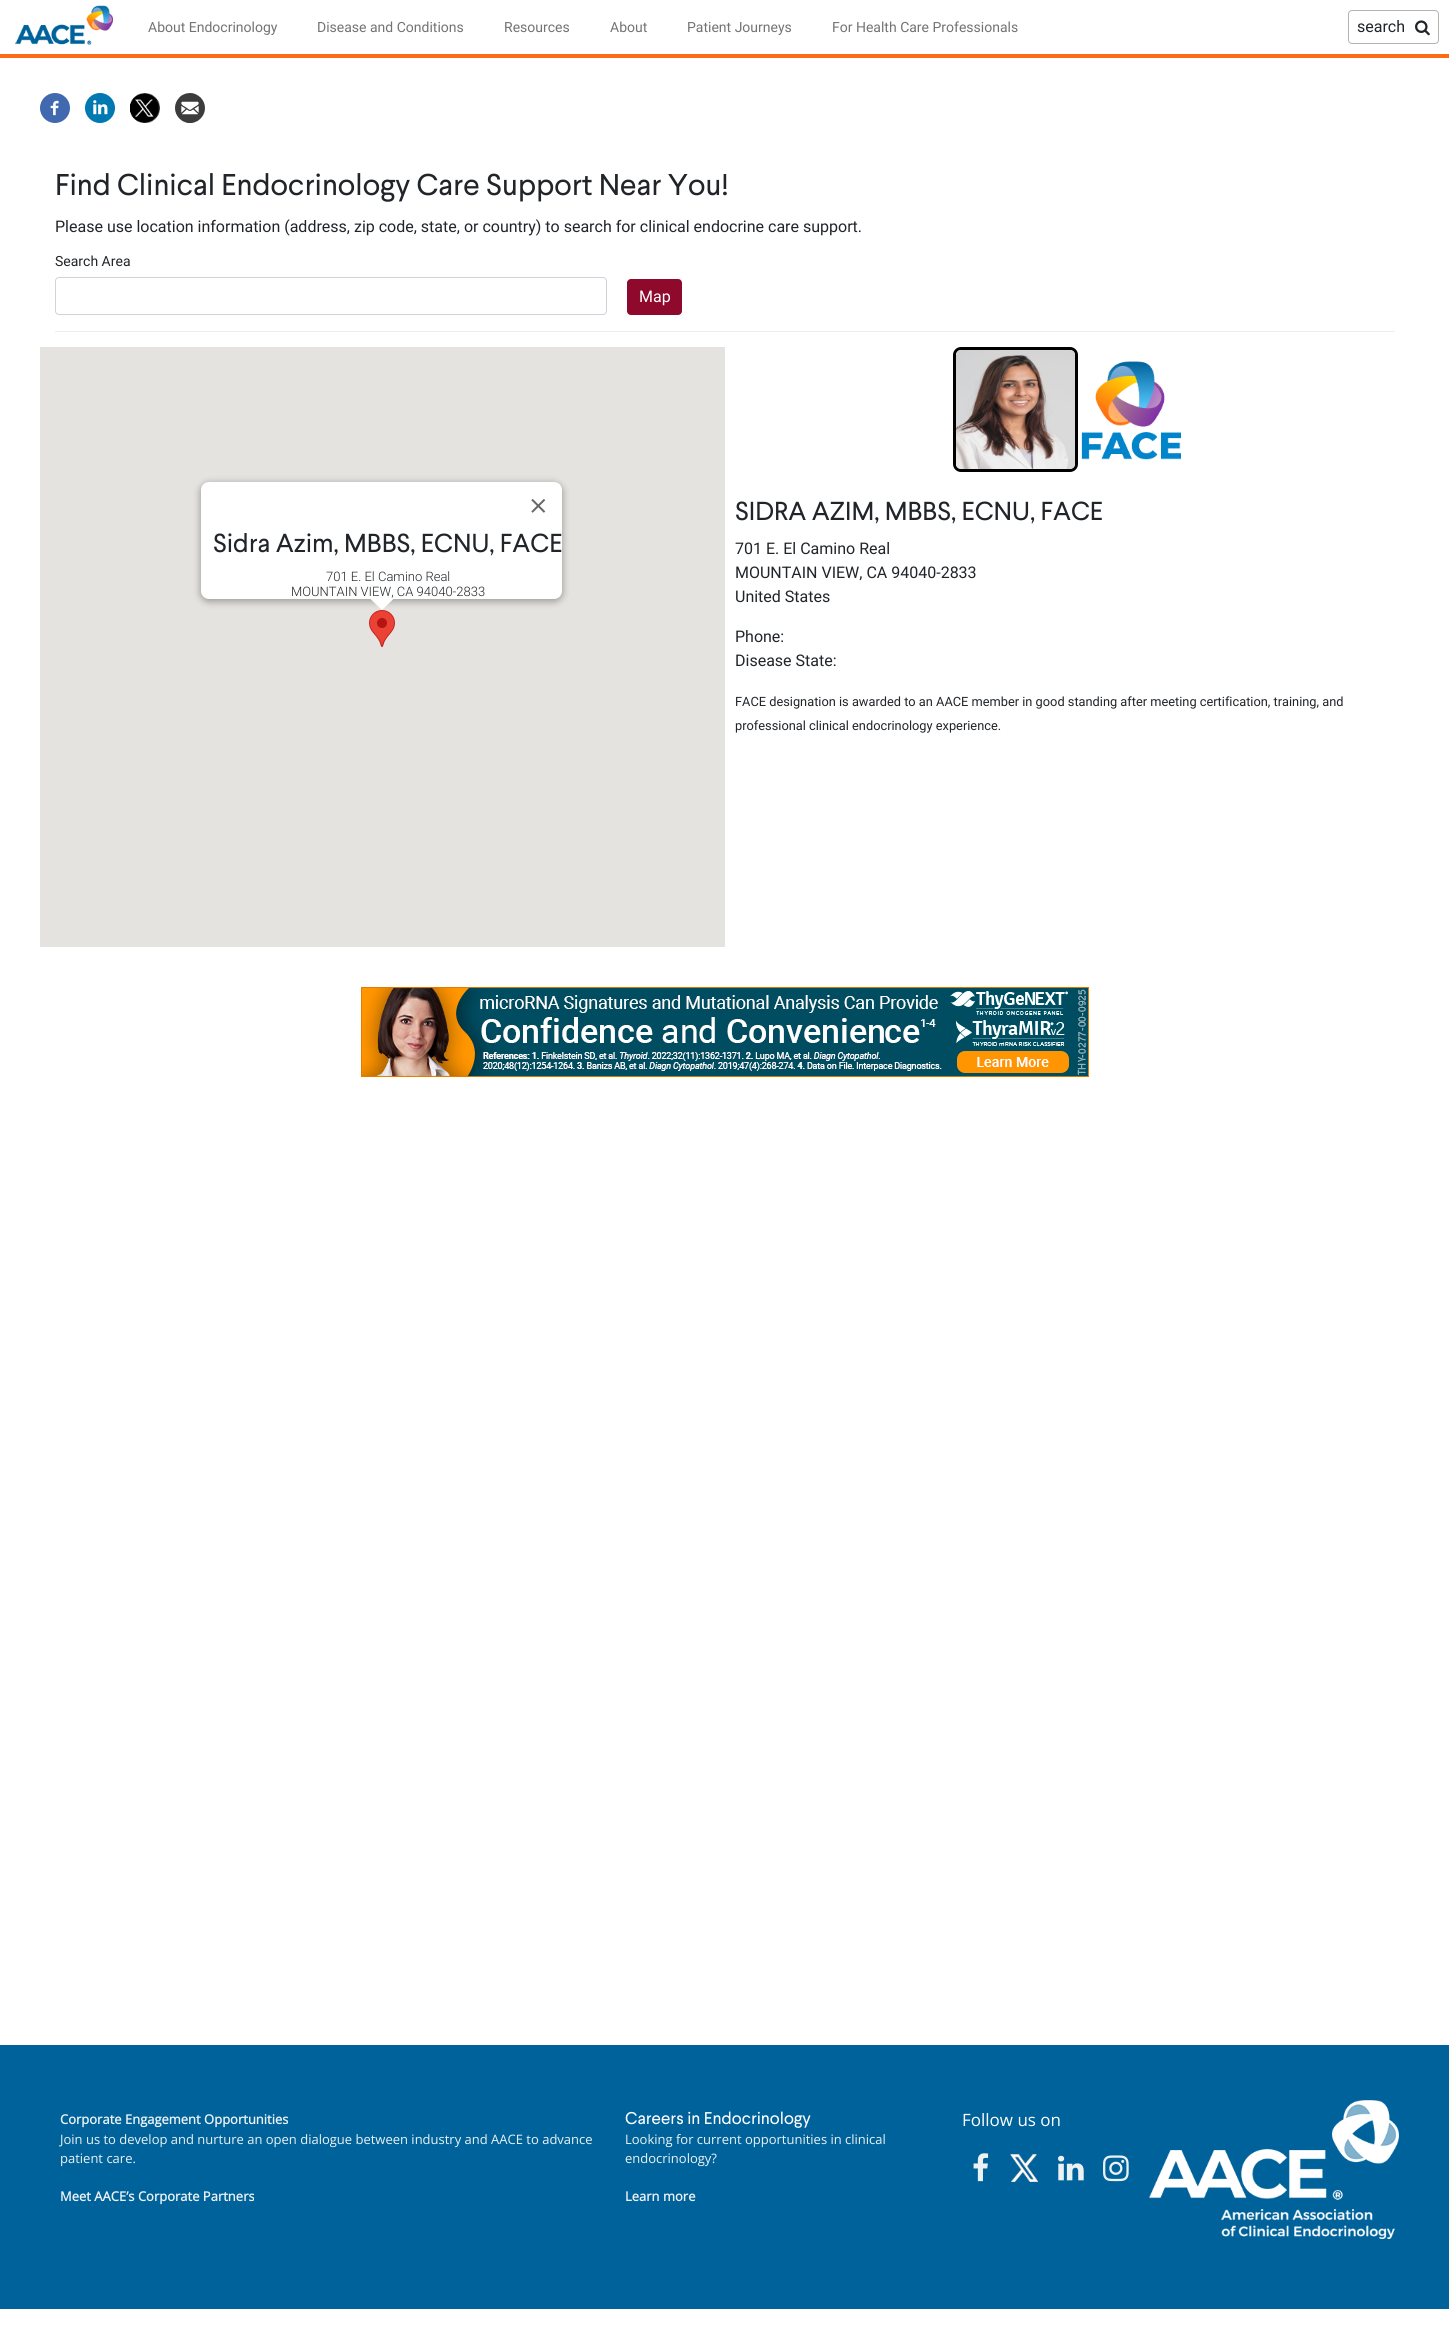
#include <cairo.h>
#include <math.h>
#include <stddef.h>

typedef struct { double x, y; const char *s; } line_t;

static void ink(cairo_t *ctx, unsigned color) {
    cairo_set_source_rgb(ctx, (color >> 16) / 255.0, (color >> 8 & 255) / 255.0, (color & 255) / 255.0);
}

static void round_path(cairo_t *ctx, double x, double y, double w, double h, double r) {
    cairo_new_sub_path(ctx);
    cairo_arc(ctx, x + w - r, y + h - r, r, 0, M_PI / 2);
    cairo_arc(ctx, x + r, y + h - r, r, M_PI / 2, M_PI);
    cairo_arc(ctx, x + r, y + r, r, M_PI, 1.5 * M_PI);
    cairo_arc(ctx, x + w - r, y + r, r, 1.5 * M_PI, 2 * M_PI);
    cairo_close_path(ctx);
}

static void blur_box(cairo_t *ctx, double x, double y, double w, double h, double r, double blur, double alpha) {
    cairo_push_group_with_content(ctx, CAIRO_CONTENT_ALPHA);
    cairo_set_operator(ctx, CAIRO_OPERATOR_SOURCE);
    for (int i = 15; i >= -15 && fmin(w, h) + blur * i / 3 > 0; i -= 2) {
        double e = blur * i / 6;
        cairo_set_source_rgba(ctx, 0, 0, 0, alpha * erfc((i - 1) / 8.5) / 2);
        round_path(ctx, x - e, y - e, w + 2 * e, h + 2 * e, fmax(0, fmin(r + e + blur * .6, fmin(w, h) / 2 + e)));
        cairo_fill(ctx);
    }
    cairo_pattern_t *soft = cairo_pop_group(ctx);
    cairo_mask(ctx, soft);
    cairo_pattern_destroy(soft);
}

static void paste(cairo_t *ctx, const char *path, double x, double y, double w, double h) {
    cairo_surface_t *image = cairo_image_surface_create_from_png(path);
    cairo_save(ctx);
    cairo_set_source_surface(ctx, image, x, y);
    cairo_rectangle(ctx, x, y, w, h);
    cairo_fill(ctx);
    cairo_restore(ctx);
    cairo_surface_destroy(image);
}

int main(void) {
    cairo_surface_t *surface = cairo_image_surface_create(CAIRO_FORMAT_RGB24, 1449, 2345);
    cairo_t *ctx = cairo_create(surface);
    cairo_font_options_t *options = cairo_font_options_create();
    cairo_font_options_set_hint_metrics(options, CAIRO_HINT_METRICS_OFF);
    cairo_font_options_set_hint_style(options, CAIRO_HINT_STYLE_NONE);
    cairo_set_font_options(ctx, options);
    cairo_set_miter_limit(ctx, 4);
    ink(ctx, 0xFFFFFF);
    cairo_paint(ctx);
    ink(ctx, 0xFF6A14);
    cairo_rectangle(ctx, 0, 54, 1449, 4);
    cairo_fill(ctx);
    paste(ctx, "media/1.png", 15, 5, 98, 40);
    cairo_select_font_face(ctx, "Roboto", CAIRO_FONT_SLANT_NORMAL, CAIRO_FONT_WEIGHT_NORMAL);
    cairo_set_font_size(ctx, 14);
    ink(ctx, 0x737373);
    {
        static const line_t items[] = {
            {148, 32, "About Endocrinology"},
            {317, 32, "Disease and Conditions"},
            {504, 32, "Resources"},
            {610, 32, "About"},
            {687, 32, "Patient Journeys"},
            {832, 32, "For Health Care Professionals"},
        };
        for (size_t i = 0; i < sizeof items / sizeof *items; i++) {
            cairo_move_to(ctx, items[i].x, items[i].y);
            cairo_show_text(ctx, items[i].s);
        }
    }
    round_path(ctx, 1348.5, 10.5, 90, 33, 3.5);
    ink(ctx, 0xB3B3B3);
    cairo_set_line_width(ctx, 1);
    cairo_stroke(ctx);
    cairo_set_font_size(ctx, 16);
    ink(ctx, 0x212529);
    cairo_move_to(ctx, 1357, 32);
    cairo_show_text(ctx, "search");
    paste(ctx, "media/2.png", 1415, 20, 15, 16);
    paste(ctx, "media/3.png", 40, 93, 30, 30);
    paste(ctx, "media/4.png", 85, 93, 30, 30);
    paste(ctx, "media/5.png", 130, 93, 30, 30);
    paste(ctx, "media/6.png", 175, 93, 30, 30);
    ink(ctx, 0xEEEEEE);
    cairo_rectangle(ctx, 55, 331, 1340, 1);
    cairo_fill(ctx);
    cairo_select_font_face(ctx, "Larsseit", CAIRO_FONT_SLANT_NORMAL, CAIRO_FONT_WEIGHT_NORMAL);
    cairo_set_font_size(ctx, 30);
    ink(ctx, 0x212529);
    cairo_move_to(ctx, 55, 195);
    cairo_show_text(ctx, "Find Clinical Endocrinology Care Support Near You!");
    cairo_select_font_face(ctx, "Roboto", CAIRO_FONT_SLANT_NORMAL, CAIRO_FONT_WEIGHT_NORMAL);
    cairo_set_font_size(ctx, 16);
    cairo_move_to(ctx, 55, 232);
    cairo_show_text(ctx, "Please use location information (address, zip code, state, or country) to search for clinical endocrine care support.");
    cairo_set_font_size(ctx, 14);
    cairo_move_to(ctx, 55, 266);
    cairo_show_text(ctx, "Search Area");
    round_path(ctx, 55.5, 277.5, 551, 37, 3.5);
    ink(ctx, 0xCED4DA);
    cairo_stroke(ctx);
    ink(ctx, 0x8F092D);
    round_path(ctx, 627, 279, 55, 36, 4);
    cairo_fill(ctx);
    cairo_set_font_size(ctx, 16);
    ink(ctx, 0xFFFFFF);
    cairo_move_to(ctx, 639, 302);
    cairo_show_text(ctx, "Map");
    ink(ctx, 0xE5E3DF);
    cairo_rectangle(ctx, 40, 347, 685, 600);
    cairo_fill(ctx);
    paste(ctx, "media/8.png", 369, 610, 26, 37);
    ink(ctx, 0x000000);
    blur_box(ctx, 200, 483, 363, 119, 9, 3.5, 0.3);
    ink(ctx, 0xFFFFFF);
    round_path(ctx, 201, 482, 361, 117, 8);
    cairo_fill(ctx);
    paste(ctx, "media/7.png", 531, 499, 15, 14);
    cairo_select_font_face(ctx, "Larsseit", CAIRO_FONT_SLANT_NORMAL, CAIRO_FONT_WEIGHT_NORMAL);
    cairo_set_font_size(ctx, 26);
    ink(ctx, 0x212529);
    cairo_move_to(ctx, 213, 552);
    cairo_show_text(ctx, "Sidra Azim, MBBS, ECNU, FACE");
    cairo_select_font_face(ctx, "Roboto Light", CAIRO_FONT_SLANT_NORMAL, CAIRO_FONT_WEIGHT_NORMAL);
    cairo_set_font_size(ctx, 13);
    cairo_move_to(ctx, 326, 581);
    cairo_show_text(ctx, "701 E. El Camino Real");
    cairo_move_to(ctx, 291, 596);
    cairo_show_text(ctx, "MOUNTAIN VIEW, CA 94040-2833");
    ink(ctx, 0xFFFFFF);
    cairo_new_path(ctx);
    cairo_move_to(ctx, 370, 598);
    cairo_line_to(ctx, 370, 598.5);
    cairo_line_to(ctx, 382, 610);
    cairo_line_to(ctx, 394.5, 598);
    cairo_close_path(ctx);
    cairo_fill(ctx);
    round_path(ctx, 954.5, 348.5, 122, 122, 6.5);
    ink(ctx, 0x000000);
    cairo_set_line_width(ctx, 3);
    cairo_stroke(ctx);
    paste(ctx, "media/9.png", 956, 350, 119, 119);
    paste(ctx, "media/10.png", 1081, 361, 100, 99);
    cairo_select_font_face(ctx, "Larsseit", CAIRO_FONT_SLANT_NORMAL, CAIRO_FONT_WEIGHT_NORMAL);
    cairo_set_font_size(ctx, 26);
    ink(ctx, 0x212529);
    cairo_move_to(ctx, 735, 520);
    cairo_show_text(ctx, "SIDRA AZIM, MBBS, ECNU, FACE");
    cairo_select_font_face(ctx, "Roboto", CAIRO_FONT_SLANT_NORMAL, CAIRO_FONT_WEIGHT_NORMAL);
    cairo_set_font_size(ctx, 16);
    {
        static const line_t items[] = {
            {735, 554, "701 E. El Camino Real"},
            {735, 578, "MOUNTAIN VIEW, CA 94040-2833"},
            {735, 602, "United States"},
            {735, 642, "Phone:"},
            {735, 666, "Disease State:"},
        };
        for (size_t i = 0; i < sizeof items / sizeof *items; i++) {
            cairo_move_to(ctx, items[i].x, items[i].y);
            cairo_show_text(ctx, items[i].s);
        }
    }
    cairo_set_font_size(ctx, 12.8);
    cairo_move_to(ctx, 735, 706);
    cairo_show_text(ctx, "FACE designation is awarded to an AACE member in good standing after meeting certification, training, and");
    cairo_move_to(ctx, 735, 730);
    cairo_show_text(ctx, "professional clinical endocrinology experience.");
    paste(ctx, "media/11.png", 361, 987, 728, 90);
    ink(ctx, 0x00629B);
    cairo_rectangle(ctx, 0, 2045, 1449, 264);
    cairo_fill(ctx);
    cairo_select_font_face(ctx, "Open Sans", CAIRO_FONT_SLANT_NORMAL, CAIRO_FONT_WEIGHT_BOLD);
    cairo_set_font_size(ctx, 13);
    ink(ctx, 0xECF2F3);
    cairo_move_to(ctx, 60, 2124);
    cairo_show_text(ctx, "Corporate Engagement Opportunities");
    cairo_select_font_face(ctx, "Open Sans", CAIRO_FONT_SLANT_NORMAL, CAIRO_FONT_WEIGHT_NORMAL);
    cairo_move_to(ctx, 60, 2144);
    cairo_show_text(ctx, "Join us to develop and nurture an open dialogue between industry and AACE to advance");
    cairo_move_to(ctx, 60, 2163);
    cairo_show_text(ctx, "patient care.");
    cairo_select_font_face(ctx, "Open Sans", CAIRO_FONT_SLANT_NORMAL, CAIRO_FONT_WEIGHT_BOLD);
    cairo_move_to(ctx, 60, 2201);
    cairo_show_text(ctx, "Meet AACE’s Corporate Partners");
    cairo_select_font_face(ctx, "Larsseit", CAIRO_FONT_SLANT_NORMAL, CAIRO_FONT_WEIGHT_NORMAL);
    cairo_set_font_size(ctx, 17);
    ink(ctx, 0xFFFFFF);
    cairo_move_to(ctx, 625, 2124);
    cairo_show_text(ctx, "Careers in Endocrinology");
    cairo_select_font_face(ctx, "Open Sans", CAIRO_FONT_SLANT_NORMAL, CAIRO_FONT_WEIGHT_NORMAL);
    cairo_set_font_size(ctx, 13);
    ink(ctx, 0xECF2F3);
    cairo_move_to(ctx, 625, 2144);
    cairo_show_text(ctx, "Looking for current opportunities in clinical");
    cairo_move_to(ctx, 625, 2163);
    cairo_show_text(ctx, "endocrinology?");
    cairo_select_font_face(ctx, "Open Sans", CAIRO_FONT_SLANT_NORMAL, CAIRO_FONT_WEIGHT_BOLD);
    cairo_move_to(ctx, 625, 2201);
    cairo_show_text(ctx, "Learn more");
    cairo_select_font_face(ctx, "Open Sans", CAIRO_FONT_SLANT_NORMAL, CAIRO_FONT_WEIGHT_NORMAL);
    cairo_set_font_size(ctx, 17);
    ink(ctx, 0xFFFFFF);
    cairo_move_to(ctx, 962, 2126);
    cairo_show_text(ctx, "Follow us on");
    paste(ctx, "media/12.png", 973, 2153, 16, 29);
    paste(ctx, "media/13.png", 1010, 2154, 28, 28);
    paste(ctx, "media/14.png", 1058, 2155, 26, 26);
    paste(ctx, "media/15.png", 1103, 2155, 26, 27);
    paste(ctx, "media/16.png", 1149, 2100, 250, 139);
    cairo_surface_write_to_png(surface, "image.png");
    cairo_font_options_destroy(options);
    cairo_destroy(ctx);
    cairo_surface_destroy(surface);
    return 0;
}
